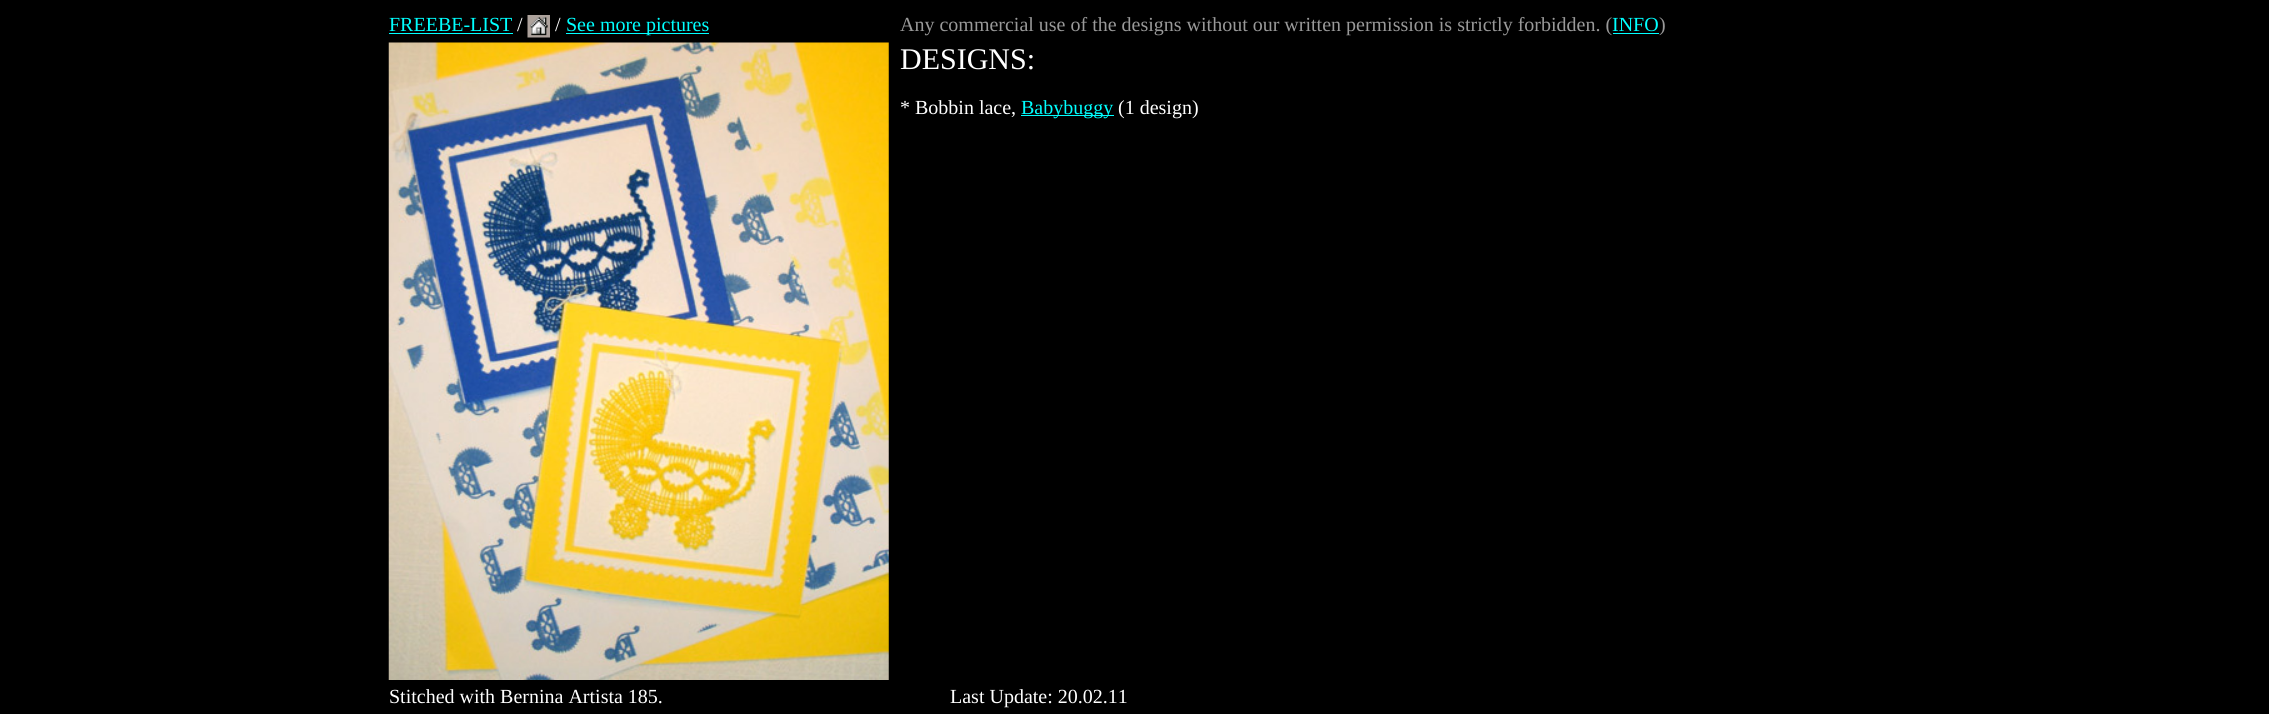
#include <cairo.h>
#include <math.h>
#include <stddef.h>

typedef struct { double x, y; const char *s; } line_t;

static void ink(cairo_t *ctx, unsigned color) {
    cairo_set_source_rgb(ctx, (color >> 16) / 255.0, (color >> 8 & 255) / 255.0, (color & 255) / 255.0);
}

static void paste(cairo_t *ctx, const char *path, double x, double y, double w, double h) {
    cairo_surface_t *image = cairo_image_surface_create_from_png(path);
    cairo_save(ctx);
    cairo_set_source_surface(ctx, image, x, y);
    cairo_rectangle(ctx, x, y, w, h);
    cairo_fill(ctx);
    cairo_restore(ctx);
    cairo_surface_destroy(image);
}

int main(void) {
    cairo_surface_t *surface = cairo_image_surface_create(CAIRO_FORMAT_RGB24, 2269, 714);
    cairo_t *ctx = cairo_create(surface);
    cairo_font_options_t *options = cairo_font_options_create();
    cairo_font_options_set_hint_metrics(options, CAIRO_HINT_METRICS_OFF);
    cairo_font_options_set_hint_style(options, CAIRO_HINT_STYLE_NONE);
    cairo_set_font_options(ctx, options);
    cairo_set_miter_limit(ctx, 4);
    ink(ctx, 0x000000);
    cairo_paint(ctx);
    cairo_select_font_face(ctx, "Liberation Serif", CAIRO_FONT_SLANT_NORMAL, CAIRO_FONT_WEIGHT_NORMAL);
    cairo_set_font_size(ctx, 20);
    ink(ctx, 0x00FFFF);
    cairo_move_to(ctx, 389, 31);
    cairo_show_text(ctx, "FREEBE-LIST");
    cairo_rectangle(ctx, 389, 33, 124, 1);
    cairo_fill(ctx);
    ink(ctx, 0xFFFFFF);
    cairo_move_to(ctx, 517, 31);
    cairo_show_text(ctx, "/");
    paste(ctx, "media/1.png", 527, 15, 23, 23);
    cairo_move_to(ctx, 555, 31);
    cairo_show_text(ctx, "/");
    ink(ctx, 0x00FFFF);
    cairo_rectangle(ctx, 566, 33, 143, 1);
    cairo_fill(ctx);
    cairo_move_to(ctx, 566, 31);
    cairo_show_text(ctx, "See more pictures");
    ink(ctx, 0x999999);
    cairo_move_to(ctx, 900, 31);
    cairo_show_text(ctx, "Any commercial use of the designs without our written permission is strictly forbidden. (");
    ink(ctx, 0x00FFFF);
    cairo_move_to(ctx, 1612, 31);
    cairo_show_text(ctx, "INFO");
    ink(ctx, 0x999999);
    cairo_move_to(ctx, 1659, 31);
    cairo_show_text(ctx, ")");
    ink(ctx, 0x00FFFF);
    cairo_rectangle(ctx, 1613, 33, 46, 1);
    cairo_fill(ctx);
    paste(ctx, "media/2.png", 388, 42, 501, 638);
    cairo_set_font_size(ctx, 30);
    ink(ctx, 0xFFFFFF);
    cairo_move_to(ctx, 900, 69);
    cairo_show_text(ctx, "DESIGNS:");
    cairo_set_font_size(ctx, 20);
    cairo_move_to(ctx, 900, 114);
    cairo_show_text(ctx, "* Bobbin lace,");
    ink(ctx, 0x00FFFF);
    cairo_rectangle(ctx, 1021, 115, 93, 1);
    cairo_fill(ctx);
    cairo_move_to(ctx, 1021, 114);
    cairo_show_text(ctx, "Babybuggy");
    ink(ctx, 0xFFFFFF);
    {
        static const line_t items[] = {
            {1118, 114, "(1 design)"},
            {389, 703, "Stitched with Bernina Artista 185."},
            {950, 703, "Last Update: 20.02.11"},
        };
        for (size_t i = 0; i < sizeof items / sizeof *items; i++) {
            cairo_move_to(ctx, items[i].x, items[i].y);
            cairo_show_text(ctx, items[i].s);
        }
    }
    cairo_surface_write_to_png(surface, "image.png");
    cairo_font_options_destroy(options);
    cairo_destroy(ctx);
    cairo_surface_destroy(surface);
    return 0;
}
